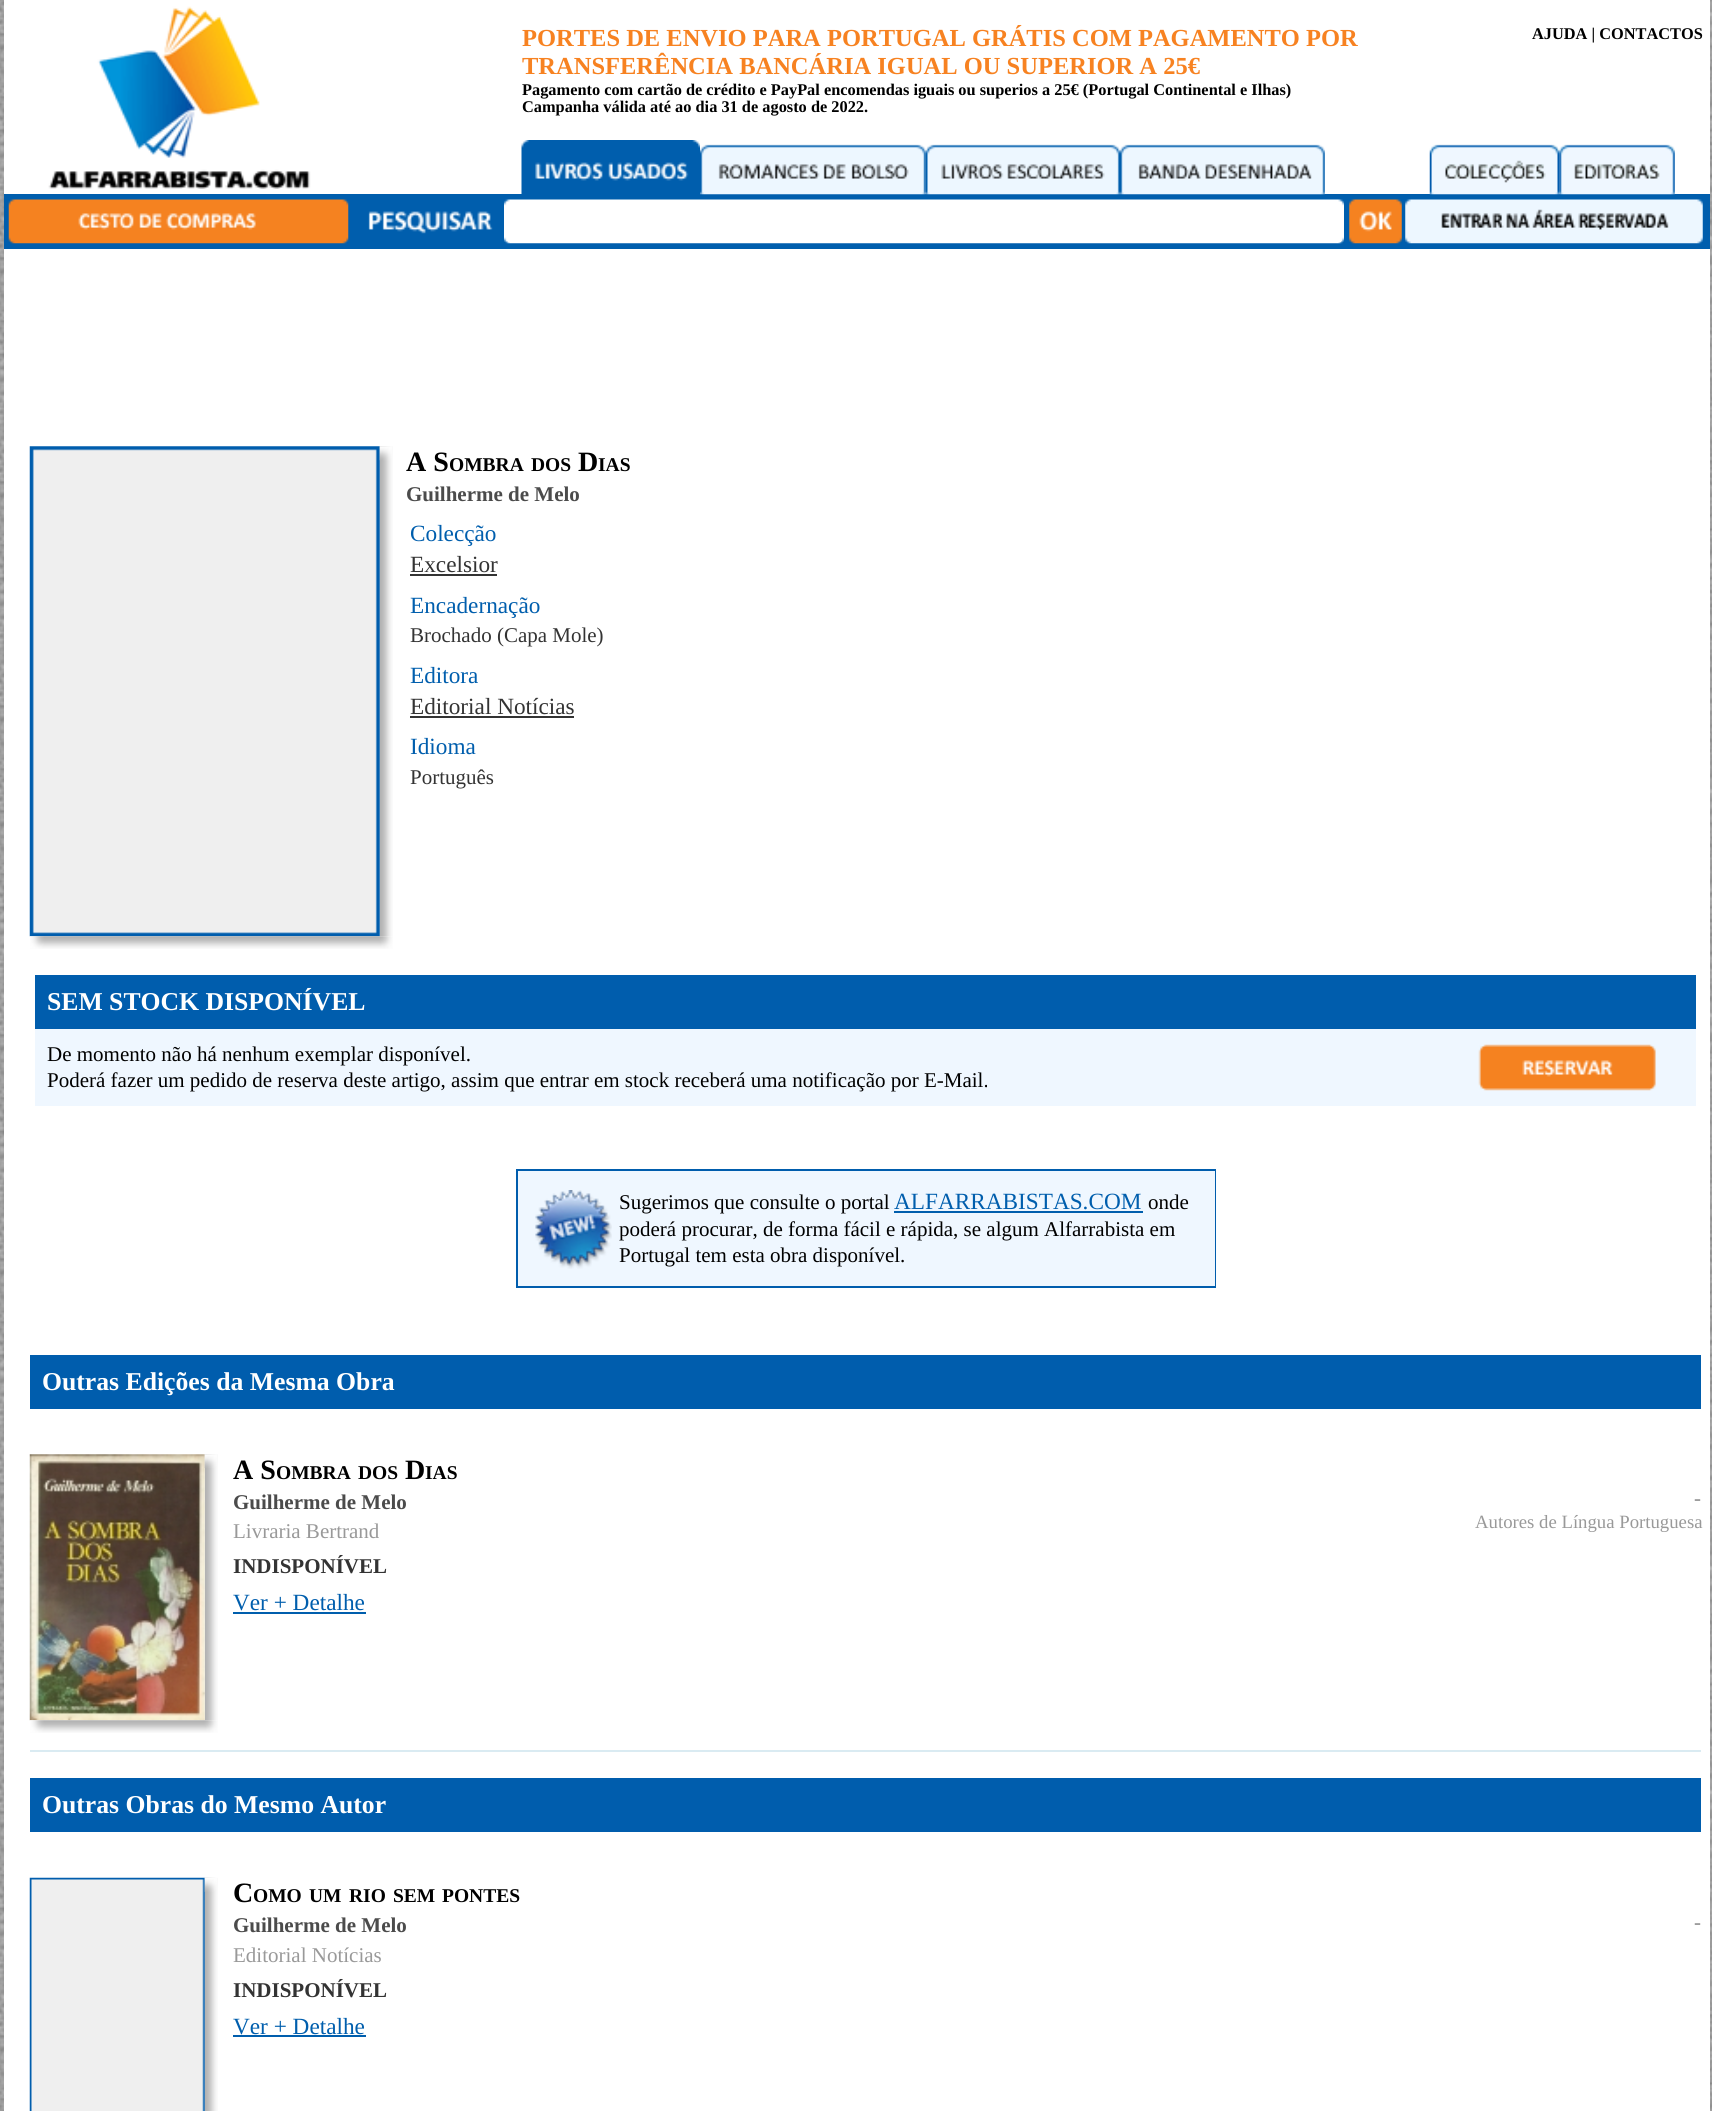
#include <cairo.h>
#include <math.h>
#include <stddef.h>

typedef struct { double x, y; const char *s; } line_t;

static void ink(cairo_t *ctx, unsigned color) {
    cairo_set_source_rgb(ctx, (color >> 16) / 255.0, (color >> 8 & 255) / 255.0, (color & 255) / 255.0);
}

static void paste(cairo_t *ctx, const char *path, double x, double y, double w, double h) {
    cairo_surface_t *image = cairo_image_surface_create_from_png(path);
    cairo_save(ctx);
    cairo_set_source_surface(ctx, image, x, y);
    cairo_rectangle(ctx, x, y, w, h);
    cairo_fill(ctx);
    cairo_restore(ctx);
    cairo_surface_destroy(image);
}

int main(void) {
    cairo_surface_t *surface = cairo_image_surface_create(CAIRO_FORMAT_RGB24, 1712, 2111);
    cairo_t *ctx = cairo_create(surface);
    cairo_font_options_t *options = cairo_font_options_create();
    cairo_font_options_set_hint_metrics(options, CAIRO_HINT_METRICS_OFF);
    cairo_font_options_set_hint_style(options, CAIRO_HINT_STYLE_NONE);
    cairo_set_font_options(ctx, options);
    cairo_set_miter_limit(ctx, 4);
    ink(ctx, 0xFFFFFF);
    cairo_paint(ctx);
    paste(ctx, "media/1.png", 0, 0, 1712, 2111);
    ink(ctx, 0xFFFFFF);
    cairo_rectangle(ctx, 4, 0, 1706, 194);
    cairo_fill(ctx);
    paste(ctx, "media/2.png", 48, 6, 263, 183);
    cairo_select_font_face(ctx, "Liberation Serif", CAIRO_FONT_SLANT_NORMAL, CAIRO_FONT_WEIGHT_BOLD);
    cairo_set_font_size(ctx, 24.5);
    ink(ctx, 0xF78221);
    cairo_move_to(ctx, 522, 46);
    cairo_show_text(ctx, "PORTES DE ENVIO PARA PORTUGAL GRÁTIS COM PAGAMENTO POR");
    cairo_move_to(ctx, 522, 74);
    cairo_show_text(ctx, "TRANSFERÊNCIA BANCÁRIA IGUAL OU SUPERIOR A 25€");
    cairo_set_font_size(ctx, 16.35);
    ink(ctx, 0x000000);
    {
        static const line_t items[] = {
            {522, 95, "Pagamento com cartão de crédito e PayPal encomendas iguais ou superios a 25€ (Portugal Continental e Ilhas)"},
            {522, 112, "Campanha válida até ao dia 31 de agosto de 2022."},
            {1532, 39, "AJUDA | CONTACTOS"},
        };
        for (size_t i = 0; i < sizeof items / sizeof *items; i++) {
            cairo_move_to(ctx, items[i].x, items[i].y);
            cairo_show_text(ctx, items[i].s);
        }
    }
    paste(ctx, "media/3.png", 521, 140, 179, 54);
    ink(ctx, 0x005EAD);
    cairo_rectangle(ctx, 4, 194, 1706, 55);
    cairo_fill(ctx);
    paste(ctx, "media/4.png", 700, 144, 226, 51);
    paste(ctx, "media/5.png", 925, 144, 195, 51);
    paste(ctx, "media/6.png", 1120, 144, 205, 51);
    paste(ctx, "media/7.png", 1429, 144, 131, 51);
    paste(ctx, "media/8.png", 1559, 144, 116, 51);
    paste(ctx, "media/9.png", 8, 199, 341, 45);
    paste(ctx, "media/10.png", 368, 211, 125, 23);
    paste(ctx, "media/11.png", 504, 199, 840, 45);
    ink(ctx, 0xFFFFFF);
    cairo_rectangle(ctx, 508, 241, 833, 1);
    cairo_fill(ctx);
    paste(ctx, "media/12.png", 1349, 199, 53, 45);
    paste(ctx, "media/13.png", 1405, 199, 298, 45);
    cairo_rectangle(ctx, 4, 249, 1706, 1862);
    cairo_fill(ctx);
    paste(ctx, "media/15.png", 379, 446, 14, 491);
    paste(ctx, "media/14.png", 29, 446, 351, 491);
    paste(ctx, "media/16.png", 379, 446, 13, 15);
    paste(ctx, "media/17.png", 30, 936, 363, 13);
    cairo_set_font_size(ctx, 28);
    ink(ctx, 0x000000);
    cairo_move_to(ctx, 406, 471);
    cairo_show_text(ctx, "A S");
    cairo_set_font_size(ctx, 19.5);
    cairo_move_to(ctx, 449, 471);
    cairo_show_text(ctx, "OMBRA");
    cairo_move_to(ctx, 531, 471);
    cairo_show_text(ctx, "DOS");
    cairo_set_font_size(ctx, 28);
    cairo_move_to(ctx, 578, 471);
    cairo_show_text(ctx, "D");
    cairo_set_font_size(ctx, 19.5);
    cairo_move_to(ctx, 598, 471);
    cairo_show_text(ctx, "IAS");
    cairo_set_font_size(ctx, 21);
    ink(ctx, 0x4B4B4B);
    cairo_move_to(ctx, 406, 501);
    cairo_show_text(ctx, "Guilherme de Melo");
    cairo_select_font_face(ctx, "Liberation Serif", CAIRO_FONT_SLANT_NORMAL, CAIRO_FONT_WEIGHT_NORMAL);
    cairo_set_font_size(ctx, 23.25);
    ink(ctx, 0x005EAD);
    cairo_move_to(ctx, 410, 541);
    cairo_show_text(ctx, "Colecção");
    ink(ctx, 0x333333);
    cairo_move_to(ctx, 410, 572);
    cairo_show_text(ctx, "Excelsior");
    cairo_rectangle(ctx, 410, 574, 87, 2);
    cairo_fill(ctx);
    ink(ctx, 0x005EAD);
    cairo_move_to(ctx, 410, 613);
    cairo_show_text(ctx, "Encadernação");
    cairo_set_font_size(ctx, 21);
    ink(ctx, 0x333333);
    cairo_move_to(ctx, 410, 642);
    cairo_show_text(ctx, "Brochado (Capa Mole)");
    cairo_set_font_size(ctx, 23.25);
    ink(ctx, 0x005EAD);
    cairo_move_to(ctx, 410, 683);
    cairo_show_text(ctx, "Editora");
    ink(ctx, 0x333333);
    cairo_move_to(ctx, 410, 714);
    cairo_show_text(ctx, "Editorial Notícias");
    cairo_rectangle(ctx, 410, 716, 164, 2);
    cairo_fill(ctx);
    ink(ctx, 0x005EAD);
    cairo_move_to(ctx, 410, 754);
    cairo_show_text(ctx, "Idioma");
    cairo_set_font_size(ctx, 21);
    ink(ctx, 0x333333);
    cairo_move_to(ctx, 410, 784);
    cairo_show_text(ctx, "Português");
    ink(ctx, 0x005DAD);
    cairo_rectangle(ctx, 35, 975, 1661, 54);
    cairo_fill(ctx);
    cairo_select_font_face(ctx, "Liberation Serif", CAIRO_FONT_SLANT_NORMAL, CAIRO_FONT_WEIGHT_BOLD);
    cairo_set_font_size(ctx, 25.7);
    ink(ctx, 0xFFFFFF);
    cairo_move_to(ctx, 47, 1010);
    cairo_show_text(ctx, "SEM STOCK DISPONÍVEL");
    ink(ctx, 0xEFF7FF);
    cairo_rectangle(ctx, 35, 1029, 1661, 77);
    cairo_fill(ctx);
    cairo_select_font_face(ctx, "Liberation Serif", CAIRO_FONT_SLANT_NORMAL, CAIRO_FONT_WEIGHT_NORMAL);
    cairo_set_font_size(ctx, 21);
    ink(ctx, 0x000000);
    cairo_move_to(ctx, 47, 1061);
    cairo_show_text(ctx, "De momento não há nenhum exemplar disponível.");
    cairo_move_to(ctx, 47, 1087);
    cairo_show_text(ctx, "Poderá fazer um pedido de reserva deste artigo, assim que entrar em stock receberá uma notificação por E-Mail.");
    paste(ctx, "media/18.png", 1478, 1044, 178, 47);
    ink(ctx, 0x005DAD);
    cairo_rectangle(ctx, 516, 1169, 700, 119);
    cairo_fill(ctx);
    ink(ctx, 0xEFF7FF);
    cairo_rectangle(ctx, 518, 1171, 697, 115);
    cairo_fill(ctx);
    paste(ctx, "media/19.png", 535, 1190, 77, 79);
    ink(ctx, 0x000000);
    cairo_move_to(ctx, 619, 1209);
    cairo_show_text(ctx, "Sugerimos que consulte o portal");
    cairo_set_font_size(ctx, 23.25);
    ink(ctx, 0x005EAD);
    cairo_move_to(ctx, 894, 1209);
    cairo_show_text(ctx, "ALFARRABISTAS.COM");
    cairo_rectangle(ctx, 894, 1211, 249, 2);
    cairo_fill(ctx);
    cairo_set_font_size(ctx, 21);
    ink(ctx, 0x000000);
    {
        static const line_t items[] = {
            {1148, 1209, "onde"},
            {619, 1236, "poderá procurar, de forma fácil e rápida, se algum Alfarrabista em"},
            {619, 1262, "Portugal tem esta obra disponível."},
        };
        for (size_t i = 0; i < sizeof items / sizeof *items; i++) {
            cairo_move_to(ctx, items[i].x, items[i].y);
            cairo_show_text(ctx, items[i].s);
        }
    }
    ink(ctx, 0x005DAD);
    cairo_rectangle(ctx, 30, 1355, 1671, 54);
    cairo_fill(ctx);
    cairo_select_font_face(ctx, "Liberation Serif", CAIRO_FONT_SLANT_NORMAL, CAIRO_FONT_WEIGHT_BOLD);
    cairo_set_font_size(ctx, 25.7);
    ink(ctx, 0xFFFFFF);
    cairo_move_to(ctx, 42, 1390);
    cairo_show_text(ctx, "Outras Edições da Mesma Obra");
    paste(ctx, "media/21.png", 204, 1454, 14, 267);
    paste(ctx, "media/20.png", 29, 1454, 176, 267);
    paste(ctx, "media/22.png", 204, 1454, 13, 14);
    paste(ctx, "media/23.png", 30, 1720, 188, 13);
    cairo_set_font_size(ctx, 28);
    ink(ctx, 0x000000);
    cairo_move_to(ctx, 233, 1479);
    cairo_show_text(ctx, "A S");
    cairo_set_font_size(ctx, 19.5);
    cairo_move_to(ctx, 276, 1479);
    cairo_show_text(ctx, "OMBRA");
    cairo_move_to(ctx, 358, 1479);
    cairo_show_text(ctx, "DOS");
    cairo_set_font_size(ctx, 28);
    cairo_move_to(ctx, 405, 1479);
    cairo_show_text(ctx, "D");
    cairo_set_font_size(ctx, 19.5);
    cairo_move_to(ctx, 425, 1479);
    cairo_show_text(ctx, "IAS");
    cairo_set_font_size(ctx, 21);
    ink(ctx, 0x4B4B4B);
    cairo_move_to(ctx, 233, 1509);
    cairo_show_text(ctx, "Guilherme de Melo");
    cairo_select_font_face(ctx, "Liberation Serif", CAIRO_FONT_SLANT_NORMAL, CAIRO_FONT_WEIGHT_NORMAL);
    ink(ctx, 0x999999);
    cairo_move_to(ctx, 233, 1538);
    cairo_show_text(ctx, "Livraria Bertrand");
    cairo_select_font_face(ctx, "Liberation Serif", CAIRO_FONT_SLANT_NORMAL, CAIRO_FONT_WEIGHT_BOLD);
    ink(ctx, 0x333333);
    cairo_move_to(ctx, 233, 1573);
    cairo_show_text(ctx, "INDISPONÍVEL");
    cairo_select_font_face(ctx, "Liberation Serif", CAIRO_FONT_SLANT_NORMAL, CAIRO_FONT_WEIGHT_NORMAL);
    cairo_set_font_size(ctx, 23.25);
    ink(ctx, 0x005EAD);
    cairo_move_to(ctx, 233, 1610);
    cairo_show_text(ctx, "Ver + Detalhe");
    cairo_rectangle(ctx, 233, 1612, 133, 2);
    cairo_fill(ctx);
    cairo_select_font_face(ctx, "Liberation Serif", CAIRO_FONT_SLANT_NORMAL, CAIRO_FONT_WEIGHT_BOLD);
    cairo_set_font_size(ctx, 21);
    ink(ctx, 0x999999);
    cairo_move_to(ctx, 1694, 1505);
    cairo_show_text(ctx, "-");
    cairo_select_font_face(ctx, "Liberation Serif", CAIRO_FONT_SLANT_NORMAL, CAIRO_FONT_WEIGHT_NORMAL);
    cairo_set_font_size(ctx, 18.75);
    cairo_move_to(ctx, 1475, 1528);
    cairo_show_text(ctx, "Autores de Língua Portuguesa");
    ink(ctx, 0xDAEBF2);
    cairo_rectangle(ctx, 30, 1750, 1671, 2);
    cairo_fill(ctx);
    ink(ctx, 0x005DAD);
    cairo_rectangle(ctx, 30, 1778, 1671, 54);
    cairo_fill(ctx);
    cairo_select_font_face(ctx, "Liberation Serif", CAIRO_FONT_SLANT_NORMAL, CAIRO_FONT_WEIGHT_BOLD);
    cairo_set_font_size(ctx, 25.7);
    ink(ctx, 0xFFFFFF);
    cairo_move_to(ctx, 42, 1813);
    cairo_show_text(ctx, "Outras Obras do Mesmo Autor");
    paste(ctx, "media/25.png", 204, 1877, 14, 234);
    paste(ctx, "media/24.png", 29, 1877, 176, 234);
    paste(ctx, "media/26.png", 204, 1877, 13, 15);
    cairo_set_font_size(ctx, 28);
    ink(ctx, 0x000000);
    cairo_move_to(ctx, 233, 1902);
    cairo_show_text(ctx, "C");
    cairo_set_font_size(ctx, 19.5);
    {
        static const line_t items[] = {
            {253, 1902, "OMO"},
            {309, 1902, "UM"},
            {349, 1902, "RIO"},
            {393, 1902, "SEM"},
            {442, 1902, "PONTES"},
        };
        for (size_t i = 0; i < sizeof items / sizeof *items; i++) {
            cairo_move_to(ctx, items[i].x, items[i].y);
            cairo_show_text(ctx, items[i].s);
        }
    }
    cairo_set_font_size(ctx, 21);
    ink(ctx, 0x4B4B4B);
    cairo_move_to(ctx, 233, 1932);
    cairo_show_text(ctx, "Guilherme de Melo");
    cairo_select_font_face(ctx, "Liberation Serif", CAIRO_FONT_SLANT_NORMAL, CAIRO_FONT_WEIGHT_NORMAL);
    ink(ctx, 0x999999);
    cairo_move_to(ctx, 233, 1962);
    cairo_show_text(ctx, "Editorial Notícias");
    cairo_select_font_face(ctx, "Liberation Serif", CAIRO_FONT_SLANT_NORMAL, CAIRO_FONT_WEIGHT_BOLD);
    ink(ctx, 0x333333);
    cairo_move_to(ctx, 233, 1997);
    cairo_show_text(ctx, "INDISPONÍVEL");
    cairo_select_font_face(ctx, "Liberation Serif", CAIRO_FONT_SLANT_NORMAL, CAIRO_FONT_WEIGHT_NORMAL);
    cairo_set_font_size(ctx, 23.25);
    ink(ctx, 0x005EAD);
    cairo_move_to(ctx, 233, 2034);
    cairo_show_text(ctx, "Ver + Detalhe");
    cairo_rectangle(ctx, 233, 2035, 133, 2);
    cairo_fill(ctx);
    cairo_select_font_face(ctx, "Liberation Serif", CAIRO_FONT_SLANT_NORMAL, CAIRO_FONT_WEIGHT_BOLD);
    cairo_set_font_size(ctx, 21);
    ink(ctx, 0x999999);
    cairo_move_to(ctx, 1694, 1929);
    cairo_show_text(ctx, "-");
    cairo_surface_write_to_png(surface, "image.png");
    cairo_font_options_destroy(options);
    cairo_destroy(ctx);
    cairo_surface_destroy(surface);
    return 0;
}
